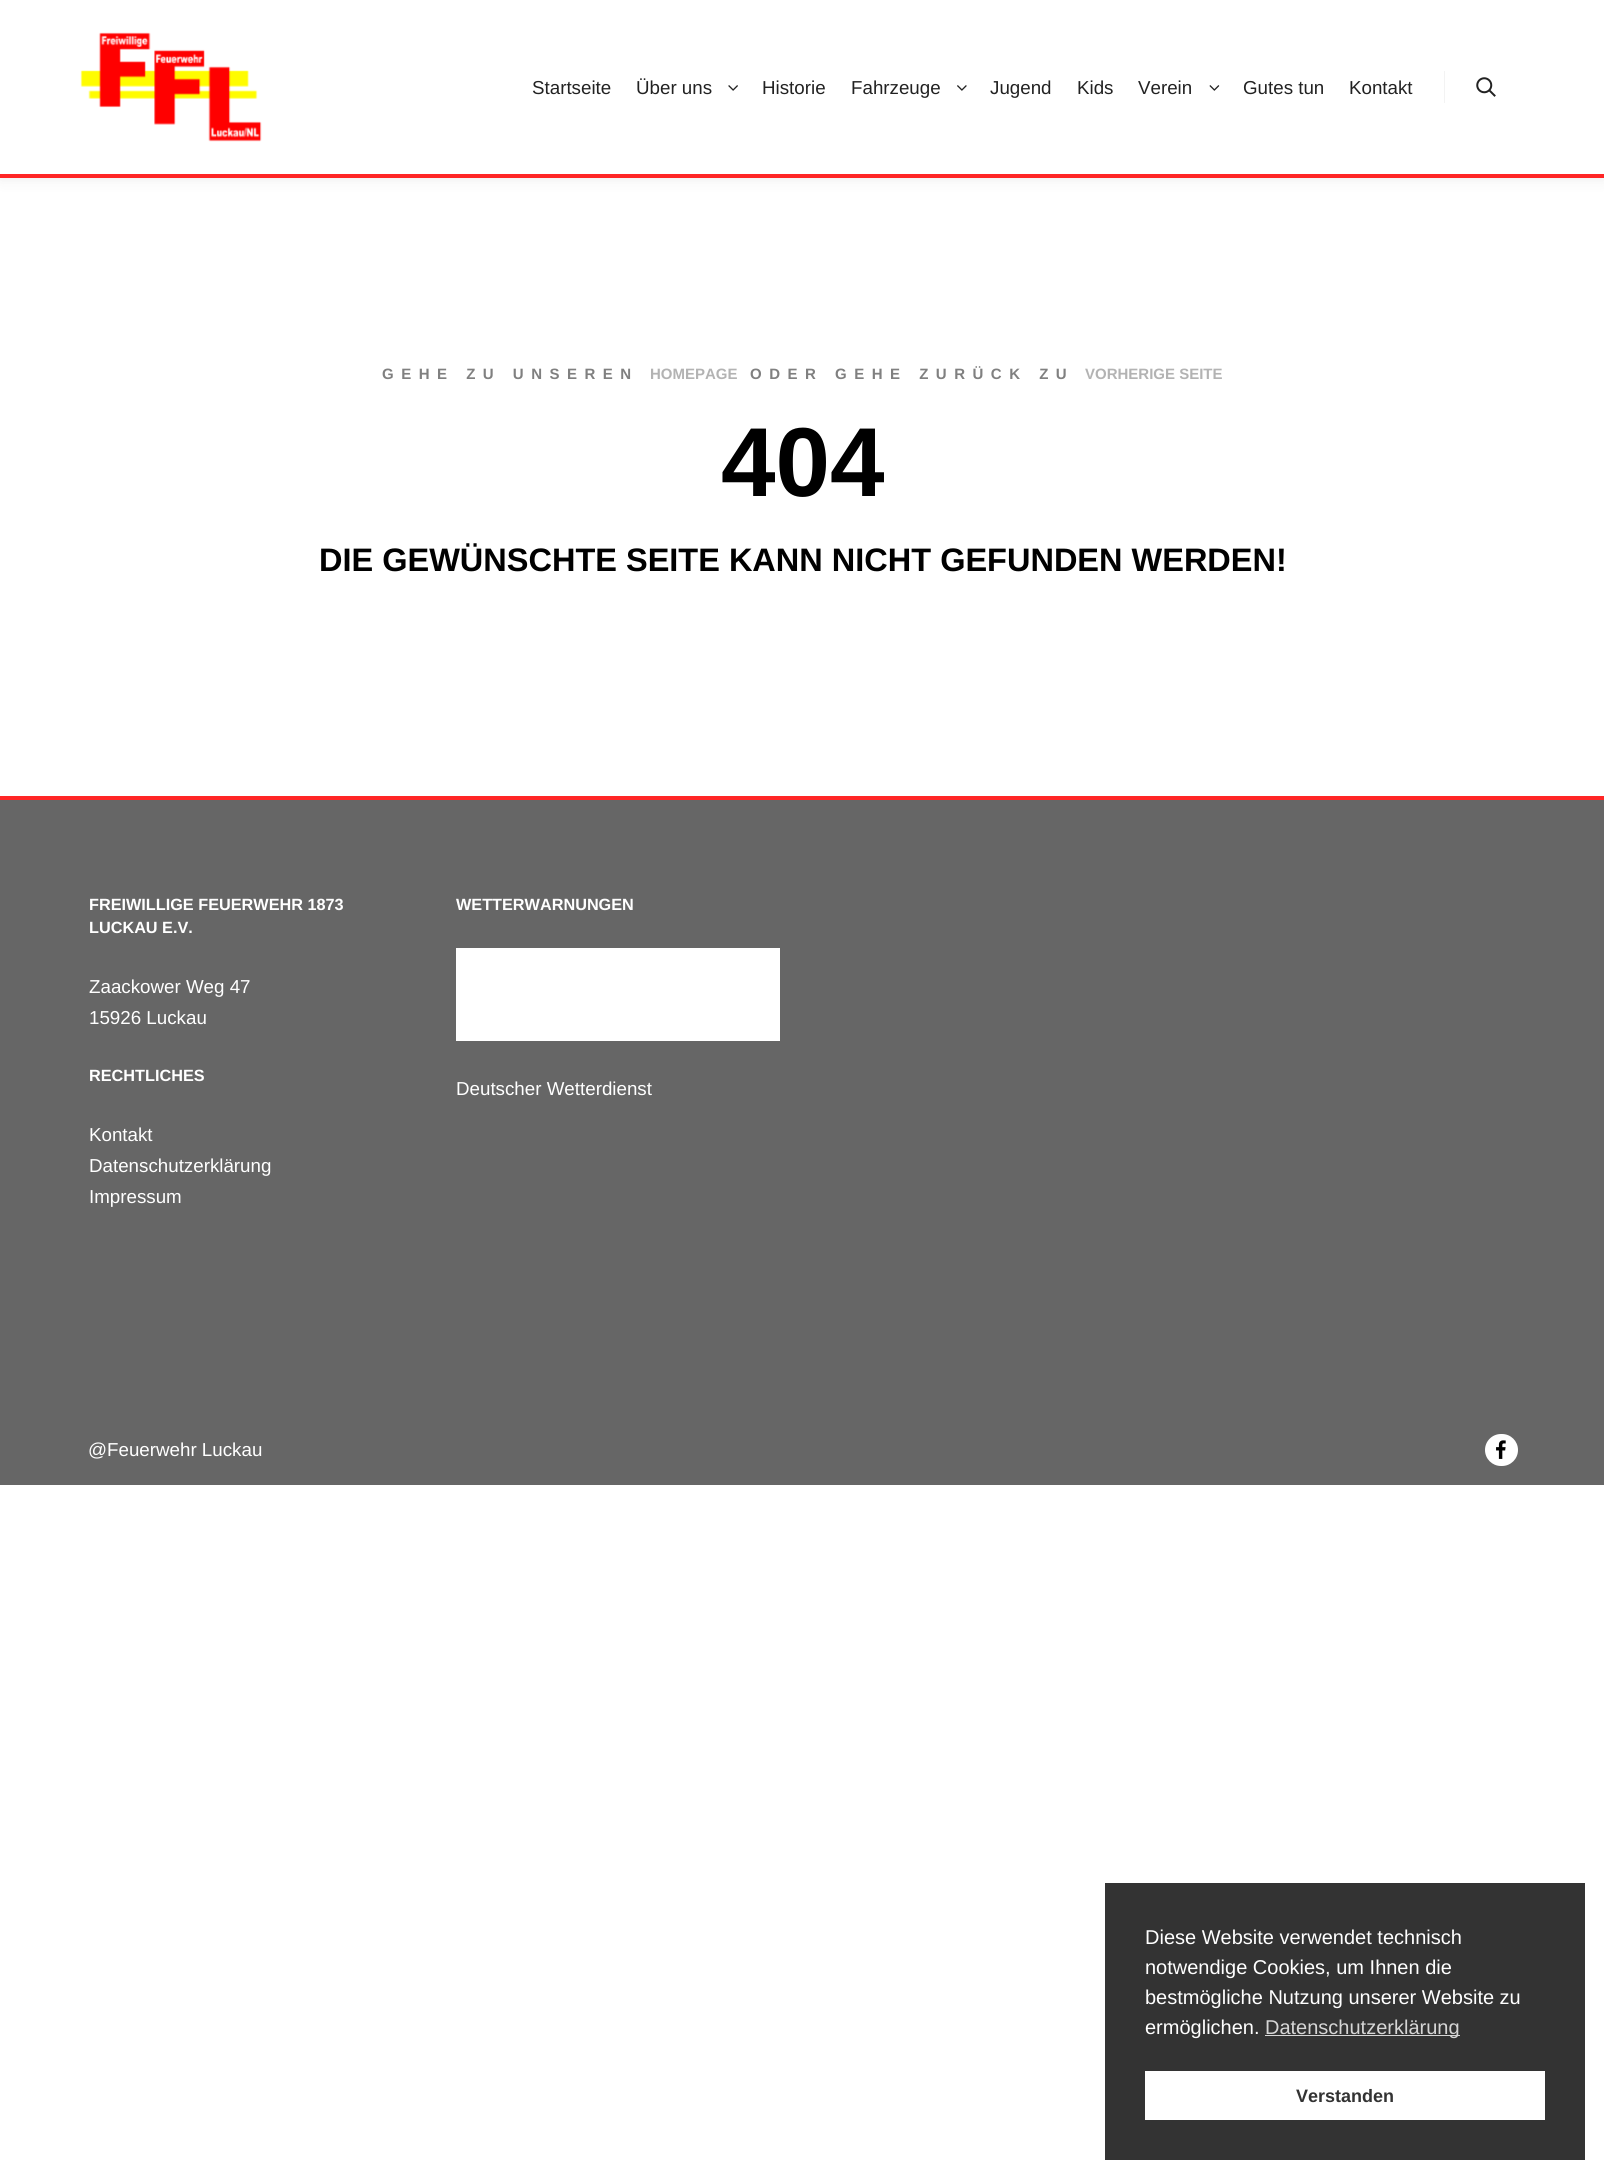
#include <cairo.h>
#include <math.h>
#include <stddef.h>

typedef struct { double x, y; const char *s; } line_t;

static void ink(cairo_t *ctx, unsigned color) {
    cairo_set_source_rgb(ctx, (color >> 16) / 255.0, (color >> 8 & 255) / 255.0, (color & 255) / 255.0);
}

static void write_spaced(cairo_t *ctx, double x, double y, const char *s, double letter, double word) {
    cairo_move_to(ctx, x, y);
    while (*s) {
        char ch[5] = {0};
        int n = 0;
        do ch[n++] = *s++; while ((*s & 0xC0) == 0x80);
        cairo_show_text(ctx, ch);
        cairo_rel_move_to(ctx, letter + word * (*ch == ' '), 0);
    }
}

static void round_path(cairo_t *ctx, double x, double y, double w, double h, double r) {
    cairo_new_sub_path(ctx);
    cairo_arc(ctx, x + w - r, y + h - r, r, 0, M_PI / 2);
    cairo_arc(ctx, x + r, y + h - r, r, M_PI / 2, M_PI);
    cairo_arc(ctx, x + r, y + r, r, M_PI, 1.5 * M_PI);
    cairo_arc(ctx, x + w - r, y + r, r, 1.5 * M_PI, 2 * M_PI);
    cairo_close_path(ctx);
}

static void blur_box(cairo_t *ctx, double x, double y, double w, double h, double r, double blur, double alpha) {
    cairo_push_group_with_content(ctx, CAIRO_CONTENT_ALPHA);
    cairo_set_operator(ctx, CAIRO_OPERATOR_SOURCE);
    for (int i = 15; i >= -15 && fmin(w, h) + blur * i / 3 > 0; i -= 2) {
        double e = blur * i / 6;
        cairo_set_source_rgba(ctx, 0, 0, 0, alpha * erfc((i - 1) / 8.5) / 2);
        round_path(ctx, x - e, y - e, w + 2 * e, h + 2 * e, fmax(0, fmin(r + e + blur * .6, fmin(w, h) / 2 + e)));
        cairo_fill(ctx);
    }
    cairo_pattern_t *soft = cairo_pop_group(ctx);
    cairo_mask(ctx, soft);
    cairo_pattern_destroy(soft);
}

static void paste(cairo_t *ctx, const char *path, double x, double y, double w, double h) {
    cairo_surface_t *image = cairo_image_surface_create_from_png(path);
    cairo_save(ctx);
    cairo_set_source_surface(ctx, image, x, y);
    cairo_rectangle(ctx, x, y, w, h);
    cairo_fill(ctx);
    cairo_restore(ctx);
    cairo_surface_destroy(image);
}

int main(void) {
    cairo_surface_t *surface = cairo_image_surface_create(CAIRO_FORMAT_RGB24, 1604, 2180);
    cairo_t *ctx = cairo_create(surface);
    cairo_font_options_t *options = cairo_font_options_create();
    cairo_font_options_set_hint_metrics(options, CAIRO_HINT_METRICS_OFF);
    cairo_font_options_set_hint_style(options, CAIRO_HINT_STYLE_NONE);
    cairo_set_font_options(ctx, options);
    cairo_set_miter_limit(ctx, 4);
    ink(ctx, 0xFFFFFF);
    cairo_paint(ctx);
    ink(ctx, 0x000000);
    blur_box(ctx, 0, 0, 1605, 178, 0, 7.5, 0.09);
    ink(ctx, 0xFFFFFF);
    cairo_rectangle(ctx, 0, 0, 1604, 174);
    cairo_fill(ctx);
    ink(ctx, 0xFF2626);
    cairo_rectangle(ctx, 0, 174, 1604, 4);
    cairo_fill(ctx);
    paste(ctx, "media/1.png", 80, 32, 182, 110);
    cairo_select_font_face(ctx, "Liberation Sans", CAIRO_FONT_SLANT_NORMAL, CAIRO_FONT_WEIGHT_NORMAL);
    cairo_set_font_size(ctx, 18.75);
    ink(ctx, 0x222222);
    cairo_move_to(ctx, 532, 94);
    cairo_show_text(ctx, "Startseite");
    cairo_move_to(ctx, 636, 94);
    cairo_show_text(ctx, "Über uns");
    paste(ctx, "media/2.png", 728, 85, 10, 6);
    cairo_move_to(ctx, 762, 94);
    cairo_show_text(ctx, "Historie");
    cairo_move_to(ctx, 851, 94);
    cairo_show_text(ctx, "Fahrzeuge");
    paste(ctx, "media/3.png", 957, 85, 10, 6);
    {
        static const line_t items[] = {
            {990, 94, "Jugend"},
            {1077, 94, "Kids"},
            {1138, 94, "Verein"},
        };
        for (size_t i = 0; i < sizeof items / sizeof *items; i++) {
            cairo_move_to(ctx, items[i].x, items[i].y);
            cairo_show_text(ctx, items[i].s);
        }
    }
    paste(ctx, "media/4.png", 1209, 85, 11, 6);
    cairo_move_to(ctx, 1243, 94);
    cairo_show_text(ctx, "Gutes tun");
    cairo_move_to(ctx, 1349, 94);
    cairo_show_text(ctx, "Kontakt");
    ink(ctx, 0xF3F3F3);
    cairo_rectangle(ctx, 1444, 71, 1, 32);
    cairo_fill(ctx);
    paste(ctx, "media/5.png", 1476, 77, 20, 20);
    cairo_select_font_face(ctx, "Liberation Sans", CAIRO_FONT_SLANT_NORMAL, CAIRO_FONT_WEIGHT_BOLD);
    cairo_set_font_size(ctx, 15);
    ink(ctx, 0x808080);
    write_spaced(ctx, 382, 379, "GEHE ZU UNSEREN", 7.5, 0);
    ink(ctx, 0xB3B3B3);
    cairo_move_to(ctx, 650, 379);
    cairo_show_text(ctx, "HOMEPAGE");
    ink(ctx, 0x808080);
    write_spaced(ctx, 750, 379, "ODER GEHE ZURÜCK ZU", 7.5, 0);
    ink(ctx, 0xB3B3B3);
    cairo_move_to(ctx, 1085, 379);
    cairo_show_text(ctx, "VORHERIGE SEITE");
    cairo_set_font_size(ctx, 98);
    ink(ctx, 0x000000);
    cairo_move_to(ctx, 721, 496);
    cairo_show_text(ctx, "404");
    cairo_set_font_size(ctx, 32.5);
    cairo_move_to(ctx, 319, 571);
    cairo_show_text(ctx, "DIE GEWÜNSCHTE SEITE KANN NICHT GEFUNDEN WERDEN!");
    ink(ctx, 0x666666);
    cairo_rectangle(ctx, 0, 800, 1604, 685);
    cairo_fill(ctx);
    ink(ctx, 0xFF2626);
    cairo_rectangle(ctx, 0, 796, 1604, 4);
    cairo_fill(ctx);
    cairo_set_font_size(ctx, 16.25);
    ink(ctx, 0xFFFFFF);
    cairo_move_to(ctx, 89, 910);
    cairo_show_text(ctx, "FREIWILLIGE FEUERWEHR 1873");
    cairo_move_to(ctx, 89, 933);
    cairo_show_text(ctx, "LUCKAU E.V.");
    cairo_select_font_face(ctx, "Liberation Sans", CAIRO_FONT_SLANT_NORMAL, CAIRO_FONT_WEIGHT_NORMAL);
    cairo_set_font_size(ctx, 18.75);
    cairo_move_to(ctx, 89, 993);
    cairo_show_text(ctx, "Zaackower Weg 47");
    cairo_move_to(ctx, 89, 1024);
    cairo_show_text(ctx, "15926 Luckau");
    cairo_select_font_face(ctx, "Liberation Sans", CAIRO_FONT_SLANT_NORMAL, CAIRO_FONT_WEIGHT_BOLD);
    cairo_set_font_size(ctx, 16.25);
    cairo_move_to(ctx, 89, 1081);
    cairo_show_text(ctx, "RECHTLICHES");
    cairo_select_font_face(ctx, "Liberation Sans", CAIRO_FONT_SLANT_NORMAL, CAIRO_FONT_WEIGHT_NORMAL);
    cairo_set_font_size(ctx, 18.75);
    {
        static const line_t items[] = {
            {89, 1141, "Kontakt"},
            {89, 1172, "Datenschutzerklärung"},
            {89, 1203, "Impressum"},
        };
        for (size_t i = 0; i < sizeof items / sizeof *items; i++) {
            cairo_move_to(ctx, items[i].x, items[i].y);
            cairo_show_text(ctx, items[i].s);
        }
    }
    cairo_select_font_face(ctx, "Liberation Sans", CAIRO_FONT_SLANT_NORMAL, CAIRO_FONT_WEIGHT_BOLD);
    cairo_set_font_size(ctx, 16.25);
    cairo_move_to(ctx, 456, 910);
    cairo_show_text(ctx, "WETTERWARNUNGEN");
    cairo_rectangle(ctx, 456, 948, 324, 93);
    cairo_fill(ctx);
    cairo_select_font_face(ctx, "Liberation Sans", CAIRO_FONT_SLANT_NORMAL, CAIRO_FONT_WEIGHT_NORMAL);
    cairo_set_font_size(ctx, 18.75);
    cairo_move_to(ctx, 456, 1095);
    cairo_show_text(ctx, "Deutscher Wetterdienst");
    cairo_move_to(ctx, 88, 1456);
    cairo_show_text(ctx, "@Feuerwehr Luckau");
    round_path(ctx, 1485, 1434, 33, 32, 16);
    cairo_fill(ctx);
    paste(ctx, "media/6.png", 1496, 1440, 10, 19);
    ink(ctx, 0x333333);
    cairo_rectangle(ctx, 1105, 1883, 480, 277);
    cairo_fill(ctx);
    cairo_set_font_size(ctx, 20);
    ink(ctx, 0xFFFFFF);
    {
        static const line_t items[] = {
            {1145, 1944, "Diese Website verwendet technisch"},
            {1145, 1974, "notwendige Cookies, um Ihnen die"},
            {1145, 2004, "bestmögliche Nutzung unserer Website zu"},
            {1145, 2034, "ermöglichen."},
        };
        for (size_t i = 0; i < sizeof items / sizeof *items; i++) {
            cairo_move_to(ctx, items[i].x, items[i].y);
            cairo_show_text(ctx, items[i].s);
        }
    }
    ink(ctx, 0xD6D6D6);
    cairo_rectangle(ctx, 1265, 2035, 195, 1);
    cairo_fill(ctx);
    cairo_move_to(ctx, 1265, 2034);
    cairo_show_text(ctx, "Datenschutzerklärung");
    ink(ctx, 0xFFFFFF);
    cairo_rectangle(ctx, 1145, 2071, 400, 49);
    cairo_fill(ctx);
    cairo_select_font_face(ctx, "Liberation Sans", CAIRO_FONT_SLANT_NORMAL, CAIRO_FONT_WEIGHT_BOLD);
    cairo_set_font_size(ctx, 18);
    ink(ctx, 0x333333);
    cairo_move_to(ctx, 1296, 2102);
    cairo_show_text(ctx, "Verstanden");
    cairo_surface_write_to_png(surface, "image.png");
    cairo_font_options_destroy(options);
    cairo_destroy(ctx);
    cairo_surface_destroy(surface);
    return 0;
}
